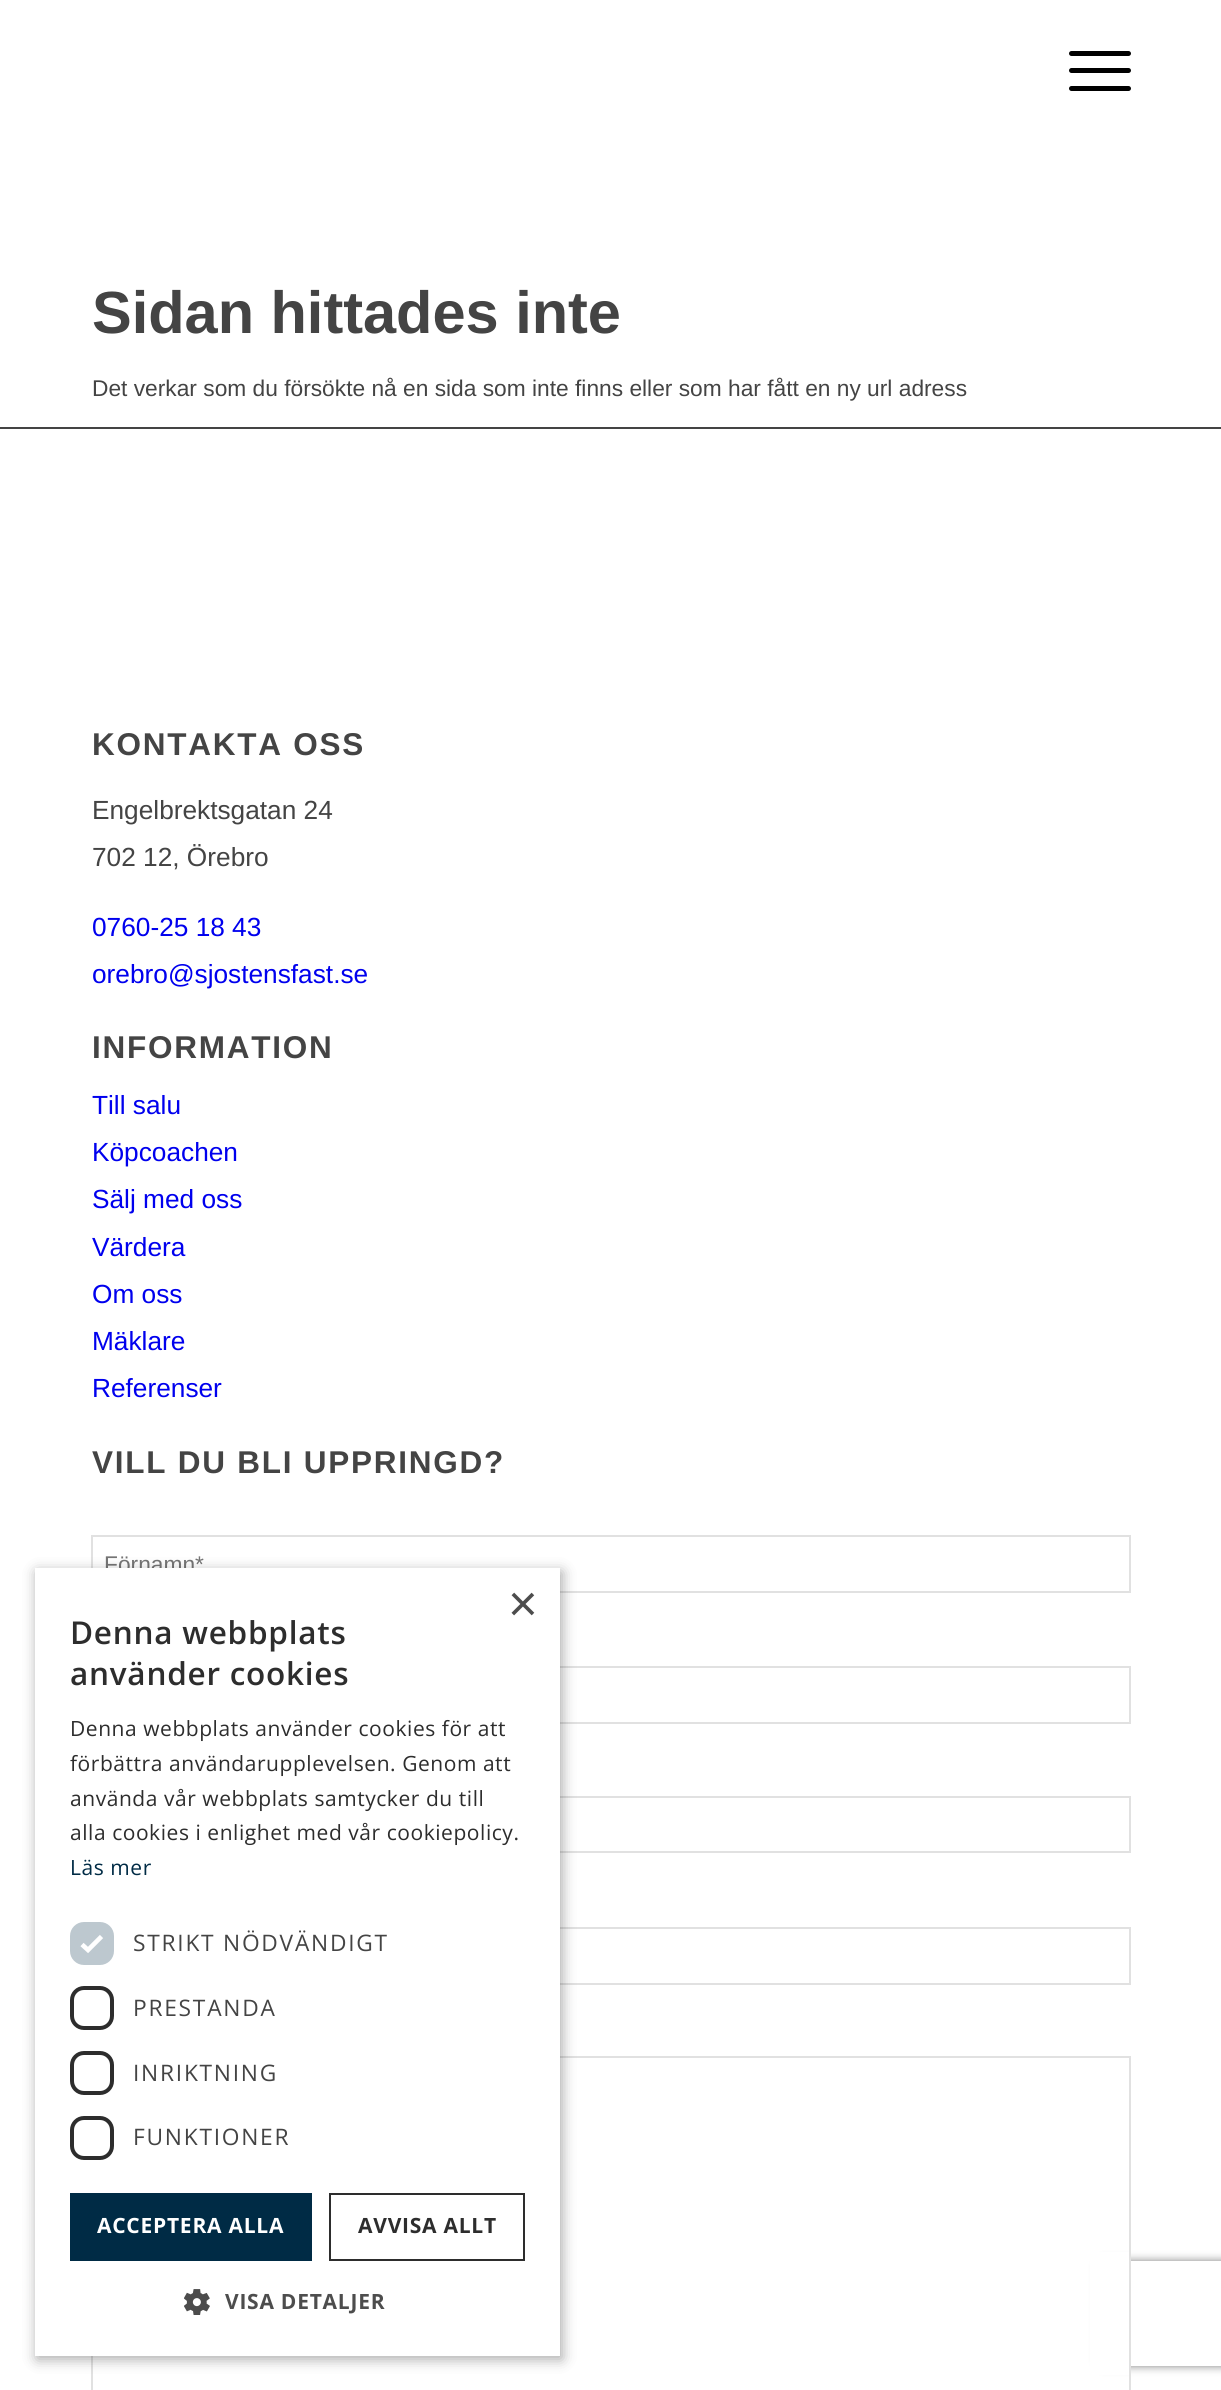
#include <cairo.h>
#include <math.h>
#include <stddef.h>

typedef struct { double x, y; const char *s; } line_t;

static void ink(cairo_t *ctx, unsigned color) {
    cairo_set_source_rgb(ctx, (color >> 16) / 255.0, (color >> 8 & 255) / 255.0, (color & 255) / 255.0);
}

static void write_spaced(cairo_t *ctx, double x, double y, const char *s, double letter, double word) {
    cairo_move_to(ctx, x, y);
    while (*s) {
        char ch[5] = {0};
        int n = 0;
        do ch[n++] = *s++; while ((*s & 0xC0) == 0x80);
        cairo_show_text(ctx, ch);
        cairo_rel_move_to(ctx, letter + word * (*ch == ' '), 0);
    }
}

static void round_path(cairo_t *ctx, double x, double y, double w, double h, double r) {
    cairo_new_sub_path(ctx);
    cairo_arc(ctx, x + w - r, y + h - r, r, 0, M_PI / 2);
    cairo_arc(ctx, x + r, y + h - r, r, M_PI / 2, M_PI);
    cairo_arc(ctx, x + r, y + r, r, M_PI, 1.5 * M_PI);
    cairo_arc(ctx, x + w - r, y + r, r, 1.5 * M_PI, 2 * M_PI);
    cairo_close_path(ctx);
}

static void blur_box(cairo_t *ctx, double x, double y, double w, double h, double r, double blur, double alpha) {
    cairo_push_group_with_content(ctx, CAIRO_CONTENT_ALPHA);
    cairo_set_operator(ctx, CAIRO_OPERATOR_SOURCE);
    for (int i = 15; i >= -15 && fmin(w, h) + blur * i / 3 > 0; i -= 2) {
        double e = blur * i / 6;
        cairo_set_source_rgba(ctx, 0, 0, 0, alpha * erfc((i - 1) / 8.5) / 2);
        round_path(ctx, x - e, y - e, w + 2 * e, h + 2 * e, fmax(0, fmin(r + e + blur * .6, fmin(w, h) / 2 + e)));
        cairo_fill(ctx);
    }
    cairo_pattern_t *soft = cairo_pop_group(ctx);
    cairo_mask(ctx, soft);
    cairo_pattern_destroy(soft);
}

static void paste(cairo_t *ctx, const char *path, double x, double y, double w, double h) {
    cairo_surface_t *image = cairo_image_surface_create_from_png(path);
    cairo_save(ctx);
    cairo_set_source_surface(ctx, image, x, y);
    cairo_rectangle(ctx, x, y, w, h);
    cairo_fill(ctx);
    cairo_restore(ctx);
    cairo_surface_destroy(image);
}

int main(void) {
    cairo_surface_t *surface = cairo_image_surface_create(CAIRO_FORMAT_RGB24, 1221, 2390);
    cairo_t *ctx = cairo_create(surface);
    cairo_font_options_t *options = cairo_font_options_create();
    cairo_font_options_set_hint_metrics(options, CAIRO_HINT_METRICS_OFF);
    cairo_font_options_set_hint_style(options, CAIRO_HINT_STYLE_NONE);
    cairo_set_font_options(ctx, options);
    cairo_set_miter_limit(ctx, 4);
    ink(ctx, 0xFFFFFF);
    cairo_paint(ctx);
    ink(ctx, 0x000000);
    round_path(ctx, 1069, 68, 62, 5, 2.5);
    cairo_fill(ctx);
    round_path(ctx, 1069, 51, 62, 5, 2.5);
    cairo_fill(ctx);
    round_path(ctx, 1069, 86, 62, 5, 2.5);
    cairo_fill(ctx);
    cairo_select_font_face(ctx, "Liberation Sans", CAIRO_FONT_SLANT_NORMAL, CAIRO_FONT_WEIGHT_BOLD);
    cairo_set_font_size(ctx, 59.5);
    ink(ctx, 0x444444);
    cairo_move_to(ctx, 92, 333);
    cairo_show_text(ctx, "Sidan hittades inte");
    cairo_select_font_face(ctx, "Liberation Sans", CAIRO_FONT_SLANT_NORMAL, CAIRO_FONT_WEIGHT_NORMAL);
    cairo_set_font_size(ctx, 22.75);
    cairo_move_to(ctx, 92, 396);
    cairo_show_text(ctx, "Det verkar som du försökte nå en sida som inte finns eller som har fått en ny url adress");
    cairo_rectangle(ctx, 0, 427, 1221, 2);
    cairo_fill(ctx);
    cairo_select_font_face(ctx, "Liberation Sans", CAIRO_FONT_SLANT_NORMAL, CAIRO_FONT_WEIGHT_BOLD);
    cairo_set_font_size(ctx, 31.5);
    write_spaced(ctx, 92, 755, "KONTAKTA OSS", 1.75, 0);
    cairo_select_font_face(ctx, "Liberation Sans", CAIRO_FONT_SLANT_NORMAL, CAIRO_FONT_WEIGHT_NORMAL);
    cairo_set_font_size(ctx, 26.25);
    cairo_move_to(ctx, 92, 819);
    cairo_show_text(ctx, "Engelbrektsgatan 24");
    cairo_move_to(ctx, 92, 866);
    cairo_show_text(ctx, "702 12, Örebro");
    ink(ctx, 0x0000EE);
    cairo_move_to(ctx, 92, 936);
    cairo_show_text(ctx, "0760-25 18 43");
    cairo_move_to(ctx, 92, 983);
    cairo_show_text(ctx, "orebro@sjostensfast.se");
    cairo_select_font_face(ctx, "Liberation Sans", CAIRO_FONT_SLANT_NORMAL, CAIRO_FONT_WEIGHT_BOLD);
    cairo_set_font_size(ctx, 31.5);
    ink(ctx, 0x444444);
    write_spaced(ctx, 92, 1058, "INFORMATION", 1.75, 0);
    cairo_select_font_face(ctx, "Liberation Sans", CAIRO_FONT_SLANT_NORMAL, CAIRO_FONT_WEIGHT_NORMAL);
    cairo_set_font_size(ctx, 26.25);
    ink(ctx, 0x0000EE);
    {
        static const line_t items[] = {
            {92, 1114, "Till salu"},
            {92, 1161, "Köpcoachen"},
            {92, 1208, "Sälj med oss"},
            {92, 1256, "Värdera"},
            {92, 1303, "Om oss"},
            {92, 1350, "Mäklare"},
            {92, 1397, "Referenser"},
        };
        for (size_t i = 0; i < sizeof items / sizeof *items; i++) {
            cairo_move_to(ctx, items[i].x, items[i].y);
            cairo_show_text(ctx, items[i].s);
        }
    }
    cairo_select_font_face(ctx, "Liberation Sans", CAIRO_FONT_SLANT_NORMAL, CAIRO_FONT_WEIGHT_BOLD);
    cairo_set_font_size(ctx, 31.5);
    ink(ctx, 0x444444);
    write_spaced(ctx, 92, 1473, "VILL DU BLI UPPRINGD?", 1.75, 0);
    cairo_rectangle(ctx, 92, 1536, 1038, 56);
    ink(ctx, 0xE1E1E1);
    cairo_stroke(ctx);
    cairo_select_font_face(ctx, "Liberation Sans", CAIRO_FONT_SLANT_NORMAL, CAIRO_FONT_WEIGHT_NORMAL);
    cairo_set_font_size(ctx, 22.75);
    ink(ctx, 0x757575);
    cairo_move_to(ctx, 104, 1572);
    cairo_show_text(ctx, "Förnamn*");
    cairo_rectangle(ctx, 92, 1667, 1038, 56);
    ink(ctx, 0xE1E1E1);
    cairo_stroke(ctx);
    cairo_rectangle(ctx, 92, 1797, 1038, 55);
    cairo_stroke(ctx);
    cairo_rectangle(ctx, 92, 1928, 1038, 56);
    cairo_stroke(ctx);
    cairo_save(ctx);
    cairo_set_fill_rule(ctx, CAIRO_FILL_RULE_EVEN_ODD);
    cairo_new_path(ctx);
    cairo_move_to(ctx, 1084, 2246);
    cairo_line_to(ctx, 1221, 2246);
    cairo_line_to(ctx, 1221, 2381);
    cairo_line_to(ctx, 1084, 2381);
    cairo_close_path(ctx);
    cairo_move_to(ctx, 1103, 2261);
    cairo_line_to(ctx, 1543, 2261);
    cairo_curve_to(ctx, 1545, 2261, 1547, 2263, 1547, 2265);
    cairo_line_to(ctx, 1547, 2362);
    cairo_curve_to(ctx, 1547, 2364, 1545, 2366, 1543, 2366);
    cairo_line_to(ctx, 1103, 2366);
    cairo_curve_to(ctx, 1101, 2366, 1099, 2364, 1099, 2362);
    cairo_line_to(ctx, 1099, 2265);
    cairo_curve_to(ctx, 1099, 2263, 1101, 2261, 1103, 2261);
    cairo_close_path(ctx);
    cairo_clip(ctx);
    ink(ctx, 0x808080);
    blur_box(ctx, 1099, 2261, 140, 105, 4, 4.5, 1);
    cairo_restore(ctx);
    ink(ctx, 0xFFFFFF);
    cairo_rectangle(ctx, 1090, 2252, 39, 123);
    cairo_fill(ctx);
    cairo_rectangle(ctx, 92, 2057, 1038, 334);
    ink(ctx, 0xE1E1E1);
    cairo_stroke(ctx);
    ink(ctx, 0x000000);
    blur_box(ctx, 37, 1572, 525, 787, 0, 7, 0.35);
    ink(ctx, 0xFFFFFF);
    cairo_rectangle(ctx, 35, 1568, 525, 788);
    cairo_fill(ctx);
    cairo_set_font_size(ctx, 51);
    ink(ctx, 0x4D4D4D);
    cairo_move_to(ctx, 508, 1621);
    cairo_show_text(ctx, "×");
    cairo_select_font_face(ctx, "Open Sans SemiBold", CAIRO_FONT_SLANT_NORMAL, CAIRO_FONT_WEIGHT_NORMAL);
    cairo_set_font_size(ctx, 31.5);
    ink(ctx, 0x2D2D2D);
    write_spaced(ctx, 70, 1644, "Denna webbplats", 0.75, 0);
    write_spaced(ctx, 70, 1685, "använder cookies", 0.75, 0);
    cairo_select_font_face(ctx, "Open Sans", CAIRO_FONT_SLANT_NORMAL, CAIRO_FONT_WEIGHT_NORMAL);
    cairo_set_font_size(ctx, 21);
    {
        static const line_t items[] = {
            {70, 1736, "Denna webbplats använder cookies för att"},
            {70, 1771, "förbättra användarupplevelsen. Genom att"},
            {70, 1806, "använda vår webbplats samtycker du till"},
            {70, 1840, "alla cookies i enlighet med vår cookiepolicy."},
        };
        for (size_t i = 0; i < sizeof items / sizeof *items; i++) {
            write_spaced(ctx, items[i].x, items[i].y, items[i].s, 0.55, 0);
        }
    }
    ink(ctx, 0x002B45);
    write_spaced(ctx, 70, 1875, "Läs mer", 0.55, 0);
    ink(ctx, 0xBDC8CF);
    round_path(ctx, 70, 1922, 44, 43, 14);
    cairo_fill(ctx);
    cairo_new_path(ctx);
    cairo_move_to(ctx, 82, 1944.5);
    cairo_line_to(ctx, 88, 1950);
    cairo_line_to(ctx, 101.5, 1936.5);
    ink(ctx, 0xFFFFFF);
    cairo_set_line_width(ctx, 4.6);
    cairo_stroke(ctx);
    cairo_set_font_size(ctx, 22.75);
    ink(ctx, 0x444444);
    write_spaced(ctx, 133, 1951, "STRIKT NÖDVÄNDIGT", 1.75, 0);
    round_path(ctx, 72, 1988, 40, 40, 12);
    ink(ctx, 0x2D2D2D);
    cairo_set_line_width(ctx, 4);
    cairo_stroke(ctx);
    ink(ctx, 0x444444);
    write_spaced(ctx, 133, 2016, "PRESTANDA", 1.75, 0);
    round_path(ctx, 72, 2053, 40, 40, 12);
    ink(ctx, 0x2D2D2D);
    cairo_stroke(ctx);
    ink(ctx, 0x444444);
    write_spaced(ctx, 133, 2081, "INRIKTNING", 1.75, 0);
    round_path(ctx, 72, 2118, 40, 40, 12);
    ink(ctx, 0x2D2D2D);
    cairo_stroke(ctx);
    ink(ctx, 0x444444);
    write_spaced(ctx, 133, 2145, "FUNKTIONER", 1.75, 0);
    ink(ctx, 0x002B45);
    cairo_rectangle(ctx, 70, 2193, 242, 68);
    cairo_fill(ctx);
    cairo_select_font_face(ctx, "Open Sans", CAIRO_FONT_SLANT_NORMAL, CAIRO_FONT_WEIGHT_BOLD);
    cairo_set_font_size(ctx, 21);
    ink(ctx, 0xFFFFFF);
    write_spaced(ctx, 97, 2233, "ACCEPTERA ALLA", 0.75, 0);
    cairo_rectangle(ctx, 330, 2194, 194, 66);
    ink(ctx, 0x2D2D2D);
    cairo_set_line_width(ctx, 2);
    cairo_stroke(ctx);
    write_spaced(ctx, 358, 2233, "AVVISA ALLT", 0.75, 0);
    paste(ctx, "media/1.png", 184, 2289, 26, 26);
    ink(ctx, 0x4D4D4D);
    write_spaced(ctx, 225, 2309, "VISA DETALJER", 0.75, 0);
    cairo_surface_write_to_png(surface, "image.png");
    cairo_font_options_destroy(options);
    cairo_destroy(ctx);
    cairo_surface_destroy(surface);
    return 0;
}
